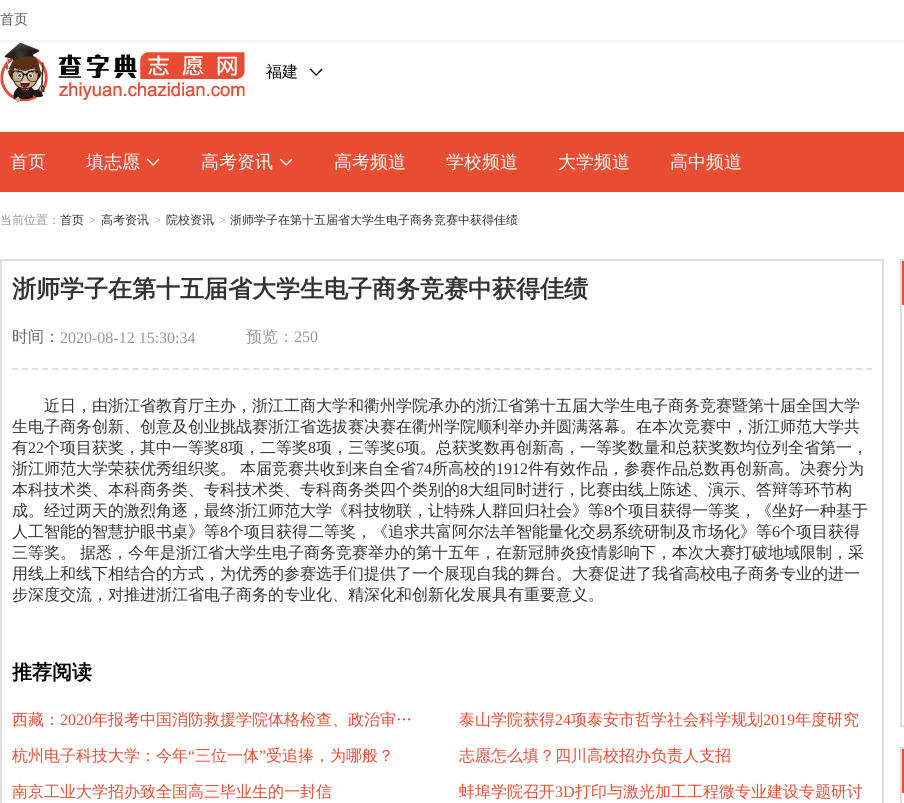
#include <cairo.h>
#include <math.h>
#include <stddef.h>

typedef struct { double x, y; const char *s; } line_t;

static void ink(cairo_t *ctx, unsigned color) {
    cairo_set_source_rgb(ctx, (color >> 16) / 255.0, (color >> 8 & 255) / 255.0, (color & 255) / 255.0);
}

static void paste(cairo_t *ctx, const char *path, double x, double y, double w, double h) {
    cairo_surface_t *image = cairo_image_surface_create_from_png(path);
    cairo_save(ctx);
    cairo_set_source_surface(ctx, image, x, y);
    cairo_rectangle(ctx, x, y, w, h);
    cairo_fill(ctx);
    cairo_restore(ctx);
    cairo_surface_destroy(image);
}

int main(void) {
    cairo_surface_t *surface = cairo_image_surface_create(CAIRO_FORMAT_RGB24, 904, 803);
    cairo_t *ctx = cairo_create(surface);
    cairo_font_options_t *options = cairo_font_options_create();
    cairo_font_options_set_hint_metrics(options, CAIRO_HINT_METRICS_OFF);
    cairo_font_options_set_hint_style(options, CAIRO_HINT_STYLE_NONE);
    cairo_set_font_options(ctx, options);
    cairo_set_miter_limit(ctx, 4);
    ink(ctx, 0xFFFFFF);
    cairo_paint(ctx);
    ink(ctx, 0xF2F4F5);
    cairo_rectangle(ctx, 0, 40, 904, 2);
    cairo_fill(ctx);
    cairo_select_font_face(ctx, "WenQuanYi Zen Hei Medium", CAIRO_FONT_SLANT_NORMAL, CAIRO_FONT_WEIGHT_NORMAL);
    cairo_set_font_size(ctx, 14);
    ink(ctx, 0x5D5D5D);
    cairo_move_to(ctx, 0, 24);
    cairo_show_text(ctx, "首页");
    paste(ctx, "media/1.png", 0, 43, 245, 59);
    cairo_set_font_size(ctx, 16);
    ink(ctx, 0x000000);
    cairo_move_to(ctx, 266, 77);
    cairo_show_text(ctx, "福建");
    paste(ctx, "media/2.png", 309, 68, 14, 8);
    ink(ctx, 0xE84C33);
    cairo_rectangle(ctx, 0, 132, 904, 60);
    cairo_fill(ctx);
    cairo_set_font_size(ctx, 18);
    ink(ctx, 0xFFFFFF);
    cairo_move_to(ctx, 10, 168);
    cairo_show_text(ctx, "首页");
    cairo_move_to(ctx, 86, 168);
    cairo_show_text(ctx, "填志愿");
    paste(ctx, "media/3.png", 146, 158, 14, 8);
    cairo_move_to(ctx, 201, 168);
    cairo_show_text(ctx, "高考资讯");
    paste(ctx, "media/3.png", 279, 158, 14, 8);
    {
        static const line_t items[] = {
            {334, 168, "高考频道"},
            {446, 168, "学校频道"},
            {558, 168, "大学频道"},
            {670, 168, "高中频道"},
        };
        for (size_t i = 0; i < sizeof items / sizeof *items; i++) {
            cairo_move_to(ctx, items[i].x, items[i].y);
            cairo_show_text(ctx, items[i].s);
        }
    }
    cairo_set_font_size(ctx, 12);
    ink(ctx, 0x999999);
    cairo_move_to(ctx, 0, 224);
    cairo_show_text(ctx, "当前位置：");
    ink(ctx, 0x333333);
    cairo_move_to(ctx, 60, 224);
    cairo_show_text(ctx, "首页");
    cairo_select_font_face(ctx, "Liberation Serif", CAIRO_FONT_SLANT_NORMAL, CAIRO_FONT_WEIGHT_NORMAL);
    ink(ctx, 0x999999);
    cairo_move_to(ctx, 89, 224);
    cairo_show_text(ctx, ">");
    cairo_select_font_face(ctx, "WenQuanYi Zen Hei Medium", CAIRO_FONT_SLANT_NORMAL, CAIRO_FONT_WEIGHT_NORMAL);
    ink(ctx, 0x333333);
    cairo_move_to(ctx, 101, 224);
    cairo_show_text(ctx, "高考资讯");
    cairo_select_font_face(ctx, "Liberation Serif", CAIRO_FONT_SLANT_NORMAL, CAIRO_FONT_WEIGHT_NORMAL);
    ink(ctx, 0x999999);
    cairo_move_to(ctx, 154, 224);
    cairo_show_text(ctx, ">");
    cairo_select_font_face(ctx, "WenQuanYi Zen Hei Medium", CAIRO_FONT_SLANT_NORMAL, CAIRO_FONT_WEIGHT_NORMAL);
    ink(ctx, 0x333333);
    cairo_move_to(ctx, 166, 224);
    cairo_show_text(ctx, "院校资讯");
    cairo_select_font_face(ctx, "Liberation Serif", CAIRO_FONT_SLANT_NORMAL, CAIRO_FONT_WEIGHT_NORMAL);
    ink(ctx, 0x999999);
    cairo_move_to(ctx, 219, 224);
    cairo_show_text(ctx, ">");
    cairo_select_font_face(ctx, "WenQuanYi Zen Hei Medium", CAIRO_FONT_SLANT_NORMAL, CAIRO_FONT_WEIGHT_NORMAL);
    ink(ctx, 0x333333);
    cairo_move_to(ctx, 230, 224);
    cairo_show_text(ctx, "浙师学子在第十五届省大学生电子商务竞赛中获得佳绩");
    cairo_rectangle(ctx, 1, 260, 882, 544);
    ink(ctx, 0xDEDEDE);
    cairo_stroke(ctx);
    cairo_select_font_face(ctx, "WenQuanYi Zen Hei", CAIRO_FONT_SLANT_NORMAL, CAIRO_FONT_WEIGHT_BOLD);
    cairo_set_font_size(ctx, 24);
    ink(ctx, 0x333333);
    cairo_move_to(ctx, 12, 297);
    cairo_show_text(ctx, "浙师学子在第十五届省大学生电子商务竞赛中获得佳绩");
    cairo_new_path(ctx);
    cairo_move_to(ctx, 12, 369);
    cairo_line_to(ctx, 872, 369);
    ink(ctx, 0xDEDEDE);
    cairo_set_dash(ctx, (double[]){6, 4.05}, 2, 0);
    cairo_stroke(ctx);
    cairo_select_font_face(ctx, "WenQuanYi Zen Hei Medium", CAIRO_FONT_SLANT_NORMAL, CAIRO_FONT_WEIGHT_NORMAL);
    cairo_set_font_size(ctx, 16);
    ink(ctx, 0x666666);
    cairo_move_to(ctx, 12, 342);
    cairo_show_text(ctx, "时间：");
    cairo_select_font_face(ctx, "Liberation Serif", CAIRO_FONT_SLANT_NORMAL, CAIRO_FONT_WEIGHT_NORMAL);
    ink(ctx, 0x999999);
    cairo_move_to(ctx, 60, 343);
    cairo_show_text(ctx, "2020-08-12 15:30:34");
    cairo_select_font_face(ctx, "WenQuanYi Zen Hei Medium", CAIRO_FONT_SLANT_NORMAL, CAIRO_FONT_WEIGHT_NORMAL);
    cairo_move_to(ctx, 246, 342);
    cairo_show_text(ctx, "预览：");
    cairo_select_font_face(ctx, "Liberation Serif", CAIRO_FONT_SLANT_NORMAL, CAIRO_FONT_WEIGHT_NORMAL);
    cairo_move_to(ctx, 294, 342);
    cairo_show_text(ctx, "250");
    cairo_select_font_face(ctx, "WenQuanYi Zen Hei Medium", CAIRO_FONT_SLANT_NORMAL, CAIRO_FONT_WEIGHT_NORMAL);
    ink(ctx, 0x333333);
    {
        static const line_t items[] = {
            {44, 411, "近日，由浙江省教育厅主办，浙江工商大学和衢州学院承办的浙江省第十五届大学生电子商务竞赛暨第十届全国大学"},
            {12, 432, "生电子商务创新、创意及创业挑战赛浙江省选拔赛决赛在衢州学院顺利举办并圆满落幕。在本次竞赛中，浙江师范大学共"},
            {12, 453, "有"},
        };
        for (size_t i = 0; i < sizeof items / sizeof *items; i++) {
            cairo_move_to(ctx, items[i].x, items[i].y);
            cairo_show_text(ctx, items[i].s);
        }
    }
    cairo_select_font_face(ctx, "Liberation Serif", CAIRO_FONT_SLANT_NORMAL, CAIRO_FONT_WEIGHT_NORMAL);
    cairo_move_to(ctx, 28, 453);
    cairo_show_text(ctx, "22");
    cairo_select_font_face(ctx, "WenQuanYi Zen Hei Medium", CAIRO_FONT_SLANT_NORMAL, CAIRO_FONT_WEIGHT_NORMAL);
    cairo_move_to(ctx, 44, 453);
    cairo_show_text(ctx, "个项目获奖，其中一等奖");
    cairo_select_font_face(ctx, "Liberation Serif", CAIRO_FONT_SLANT_NORMAL, CAIRO_FONT_WEIGHT_NORMAL);
    cairo_move_to(ctx, 220, 453);
    cairo_show_text(ctx, "8");
    cairo_select_font_face(ctx, "WenQuanYi Zen Hei Medium", CAIRO_FONT_SLANT_NORMAL, CAIRO_FONT_WEIGHT_NORMAL);
    cairo_move_to(ctx, 228, 453);
    cairo_show_text(ctx, "项，二等奖");
    cairo_select_font_face(ctx, "Liberation Serif", CAIRO_FONT_SLANT_NORMAL, CAIRO_FONT_WEIGHT_NORMAL);
    cairo_move_to(ctx, 308, 453);
    cairo_show_text(ctx, "8");
    cairo_select_font_face(ctx, "WenQuanYi Zen Hei Medium", CAIRO_FONT_SLANT_NORMAL, CAIRO_FONT_WEIGHT_NORMAL);
    cairo_move_to(ctx, 316, 453);
    cairo_show_text(ctx, "项，三等奖");
    cairo_select_font_face(ctx, "Liberation Serif", CAIRO_FONT_SLANT_NORMAL, CAIRO_FONT_WEIGHT_NORMAL);
    cairo_move_to(ctx, 396, 453);
    cairo_show_text(ctx, "6");
    cairo_select_font_face(ctx, "WenQuanYi Zen Hei Medium", CAIRO_FONT_SLANT_NORMAL, CAIRO_FONT_WEIGHT_NORMAL);
    {
        static const line_t items[] = {
            {404, 453, "项。总获奖数再创新高，一等奖数量和总获奖数均位列全省第一，"},
            {12, 474, "浙江师范大学荣获优秀组织奖。"},
            {240, 474, "本届竞赛共收到来自全省"},
        };
        for (size_t i = 0; i < sizeof items / sizeof *items; i++) {
            cairo_move_to(ctx, items[i].x, items[i].y);
            cairo_show_text(ctx, items[i].s);
        }
    }
    cairo_select_font_face(ctx, "Liberation Serif", CAIRO_FONT_SLANT_NORMAL, CAIRO_FONT_WEIGHT_NORMAL);
    cairo_move_to(ctx, 416, 474);
    cairo_show_text(ctx, "74");
    cairo_select_font_face(ctx, "WenQuanYi Zen Hei Medium", CAIRO_FONT_SLANT_NORMAL, CAIRO_FONT_WEIGHT_NORMAL);
    cairo_move_to(ctx, 432, 474);
    cairo_show_text(ctx, "所高校的");
    cairo_select_font_face(ctx, "Liberation Serif", CAIRO_FONT_SLANT_NORMAL, CAIRO_FONT_WEIGHT_NORMAL);
    cairo_move_to(ctx, 496, 474);
    cairo_show_text(ctx, "1912");
    cairo_select_font_face(ctx, "WenQuanYi Zen Hei Medium", CAIRO_FONT_SLANT_NORMAL, CAIRO_FONT_WEIGHT_NORMAL);
    cairo_move_to(ctx, 528, 474);
    cairo_show_text(ctx, "件有效作品，参赛作品总数再创新高。决赛分为");
    cairo_move_to(ctx, 12, 495);
    cairo_show_text(ctx, "本科技术类、本科商务类、专科技术类、专科商务类四个类别的");
    cairo_select_font_face(ctx, "Liberation Serif", CAIRO_FONT_SLANT_NORMAL, CAIRO_FONT_WEIGHT_NORMAL);
    cairo_move_to(ctx, 460, 495);
    cairo_show_text(ctx, "8");
    cairo_select_font_face(ctx, "WenQuanYi Zen Hei Medium", CAIRO_FONT_SLANT_NORMAL, CAIRO_FONT_WEIGHT_NORMAL);
    cairo_move_to(ctx, 468, 495);
    cairo_show_text(ctx, "大组同时进行，比赛由线上陈述、演示、答辩等环节构");
    cairo_move_to(ctx, 12, 516);
    cairo_show_text(ctx, "成。经过两天的激烈角逐，最终浙江师范大学《科技物联，让特殊人群回归社会》等");
    cairo_select_font_face(ctx, "Liberation Serif", CAIRO_FONT_SLANT_NORMAL, CAIRO_FONT_WEIGHT_NORMAL);
    cairo_move_to(ctx, 604, 516);
    cairo_show_text(ctx, "8");
    cairo_select_font_face(ctx, "WenQuanYi Zen Hei Medium", CAIRO_FONT_SLANT_NORMAL, CAIRO_FONT_WEIGHT_NORMAL);
    cairo_move_to(ctx, 612, 516);
    cairo_show_text(ctx, "个项目获得一等奖，《坐好一种基于");
    cairo_move_to(ctx, 12, 537);
    cairo_show_text(ctx, "人工智能的智慧护眼书桌》等");
    cairo_select_font_face(ctx, "Liberation Serif", CAIRO_FONT_SLANT_NORMAL, CAIRO_FONT_WEIGHT_NORMAL);
    cairo_move_to(ctx, 220, 537);
    cairo_show_text(ctx, "8");
    cairo_select_font_face(ctx, "WenQuanYi Zen Hei Medium", CAIRO_FONT_SLANT_NORMAL, CAIRO_FONT_WEIGHT_NORMAL);
    cairo_move_to(ctx, 228, 537);
    cairo_show_text(ctx, "个项目获得二等奖，《追求共富阿尔法羊智能量化交易系统研制及市场化》等");
    cairo_select_font_face(ctx, "Liberation Serif", CAIRO_FONT_SLANT_NORMAL, CAIRO_FONT_WEIGHT_NORMAL);
    cairo_move_to(ctx, 772, 537);
    cairo_show_text(ctx, "6");
    cairo_select_font_face(ctx, "WenQuanYi Zen Hei Medium", CAIRO_FONT_SLANT_NORMAL, CAIRO_FONT_WEIGHT_NORMAL);
    {
        static const line_t items[] = {
            {780, 537, "个项目获得"},
            {12, 558, "三等奖。"},
            {80, 558, "据悉，今年是浙江省大学生电子商务竞赛举办的第十五年，在新冠肺炎疫情影响下，本次大赛打破地域限制，采"},
            {12, 579, "用线上和线下相结合的方式，为优秀的参赛选手们提供了一个展现自我的舞台。大赛促进了我省高校电子商务专业的进一"},
            {12, 600, "步深度交流，对推进浙江省电子商务的专业化、精深化和创新化发展具有重要意义。"},
        };
        for (size_t i = 0; i < sizeof items / sizeof *items; i++) {
            cairo_move_to(ctx, items[i].x, items[i].y);
            cairo_show_text(ctx, items[i].s);
        }
    }
    cairo_select_font_face(ctx, "WenQuanYi Zen Hei", CAIRO_FONT_SLANT_NORMAL, CAIRO_FONT_WEIGHT_BOLD);
    cairo_set_font_size(ctx, 20);
    ink(ctx, 0x000000);
    cairo_move_to(ctx, 12, 679);
    cairo_show_text(ctx, "推荐阅读");
    cairo_select_font_face(ctx, "WenQuanYi Zen Hei Medium", CAIRO_FONT_SLANT_NORMAL, CAIRO_FONT_WEIGHT_NORMAL);
    cairo_set_font_size(ctx, 16);
    ink(ctx, 0xE84C33);
    cairo_move_to(ctx, 12, 725);
    cairo_show_text(ctx, "西藏：");
    cairo_select_font_face(ctx, "Liberation Serif", CAIRO_FONT_SLANT_NORMAL, CAIRO_FONT_WEIGHT_NORMAL);
    cairo_move_to(ctx, 60, 725);
    cairo_show_text(ctx, "2020");
    cairo_select_font_face(ctx, "WenQuanYi Zen Hei Medium", CAIRO_FONT_SLANT_NORMAL, CAIRO_FONT_WEIGHT_NORMAL);
    cairo_move_to(ctx, 92, 725);
    cairo_show_text(ctx, "年报考中国消防救援学院体格检查、政治审…");
    cairo_move_to(ctx, 459, 725);
    cairo_show_text(ctx, "泰山学院获得");
    cairo_select_font_face(ctx, "Liberation Serif", CAIRO_FONT_SLANT_NORMAL, CAIRO_FONT_WEIGHT_NORMAL);
    cairo_move_to(ctx, 555, 725);
    cairo_show_text(ctx, "24");
    cairo_select_font_face(ctx, "WenQuanYi Zen Hei Medium", CAIRO_FONT_SLANT_NORMAL, CAIRO_FONT_WEIGHT_NORMAL);
    cairo_move_to(ctx, 571, 725);
    cairo_show_text(ctx, "项泰安市哲学社会科学规划");
    cairo_select_font_face(ctx, "Liberation Serif", CAIRO_FONT_SLANT_NORMAL, CAIRO_FONT_WEIGHT_NORMAL);
    cairo_move_to(ctx, 763, 725);
    cairo_show_text(ctx, "2019");
    cairo_select_font_face(ctx, "WenQuanYi Zen Hei Medium", CAIRO_FONT_SLANT_NORMAL, CAIRO_FONT_WEIGHT_NORMAL);
    cairo_move_to(ctx, 795, 725);
    cairo_show_text(ctx, "年度研究");
    cairo_move_to(ctx, 12, 761);
    cairo_show_text(ctx, "杭州电子科技大学：今年");
    cairo_select_font_face(ctx, "Liberation Serif", CAIRO_FONT_SLANT_NORMAL, CAIRO_FONT_WEIGHT_NORMAL);
    cairo_move_to(ctx, 188, 761);
    cairo_show_text(ctx, "“");
    cairo_select_font_face(ctx, "WenQuanYi Zen Hei Medium", CAIRO_FONT_SLANT_NORMAL, CAIRO_FONT_WEIGHT_NORMAL);
    cairo_move_to(ctx, 195, 761);
    cairo_show_text(ctx, "三位一体");
    cairo_select_font_face(ctx, "Liberation Serif", CAIRO_FONT_SLANT_NORMAL, CAIRO_FONT_WEIGHT_NORMAL);
    cairo_move_to(ctx, 259, 761);
    cairo_show_text(ctx, "”");
    cairo_select_font_face(ctx, "WenQuanYi Zen Hei Medium", CAIRO_FONT_SLANT_NORMAL, CAIRO_FONT_WEIGHT_NORMAL);
    {
        static const line_t items[] = {
            {266, 761, "受追捧，为哪般？"},
            {459, 761, "志愿怎么填？四川高校招办负责人支招"},
            {12, 797, "南京工业大学招办致全国高三毕业生的一封信"},
            {459, 797, "蚌埠学院召开"},
        };
        for (size_t i = 0; i < sizeof items / sizeof *items; i++) {
            cairo_move_to(ctx, items[i].x, items[i].y);
            cairo_show_text(ctx, items[i].s);
        }
    }
    cairo_select_font_face(ctx, "Liberation Serif", CAIRO_FONT_SLANT_NORMAL, CAIRO_FONT_WEIGHT_NORMAL);
    cairo_move_to(ctx, 555, 797);
    cairo_show_text(ctx, "3D");
    cairo_select_font_face(ctx, "WenQuanYi Zen Hei Medium", CAIRO_FONT_SLANT_NORMAL, CAIRO_FONT_WEIGHT_NORMAL);
    cairo_move_to(ctx, 575, 797);
    cairo_show_text(ctx, "打印与激光加工工程微专业建设专题研讨");
    cairo_rectangle(ctx, 901, 260, 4, 466);
    ink(ctx, 0xDEDEDE);
    cairo_set_dash(ctx, NULL, 0, 0);
    cairo_stroke(ctx);
    ink(ctx, 0xE84C33);
    cairo_rectangle(ctx, 902, 261, 2, 44);
    cairo_fill(ctx);
    cairo_rectangle(ctx, 901, 748, 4, 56);
    ink(ctx, 0xDEDEDE);
    cairo_stroke(ctx);
    ink(ctx, 0xE84C33);
    cairo_rectangle(ctx, 902, 749, 2, 44);
    cairo_fill(ctx);
    cairo_surface_write_to_png(surface, "image.png");
    cairo_font_options_destroy(options);
    cairo_destroy(ctx);
    cairo_surface_destroy(surface);
    return 0;
}
